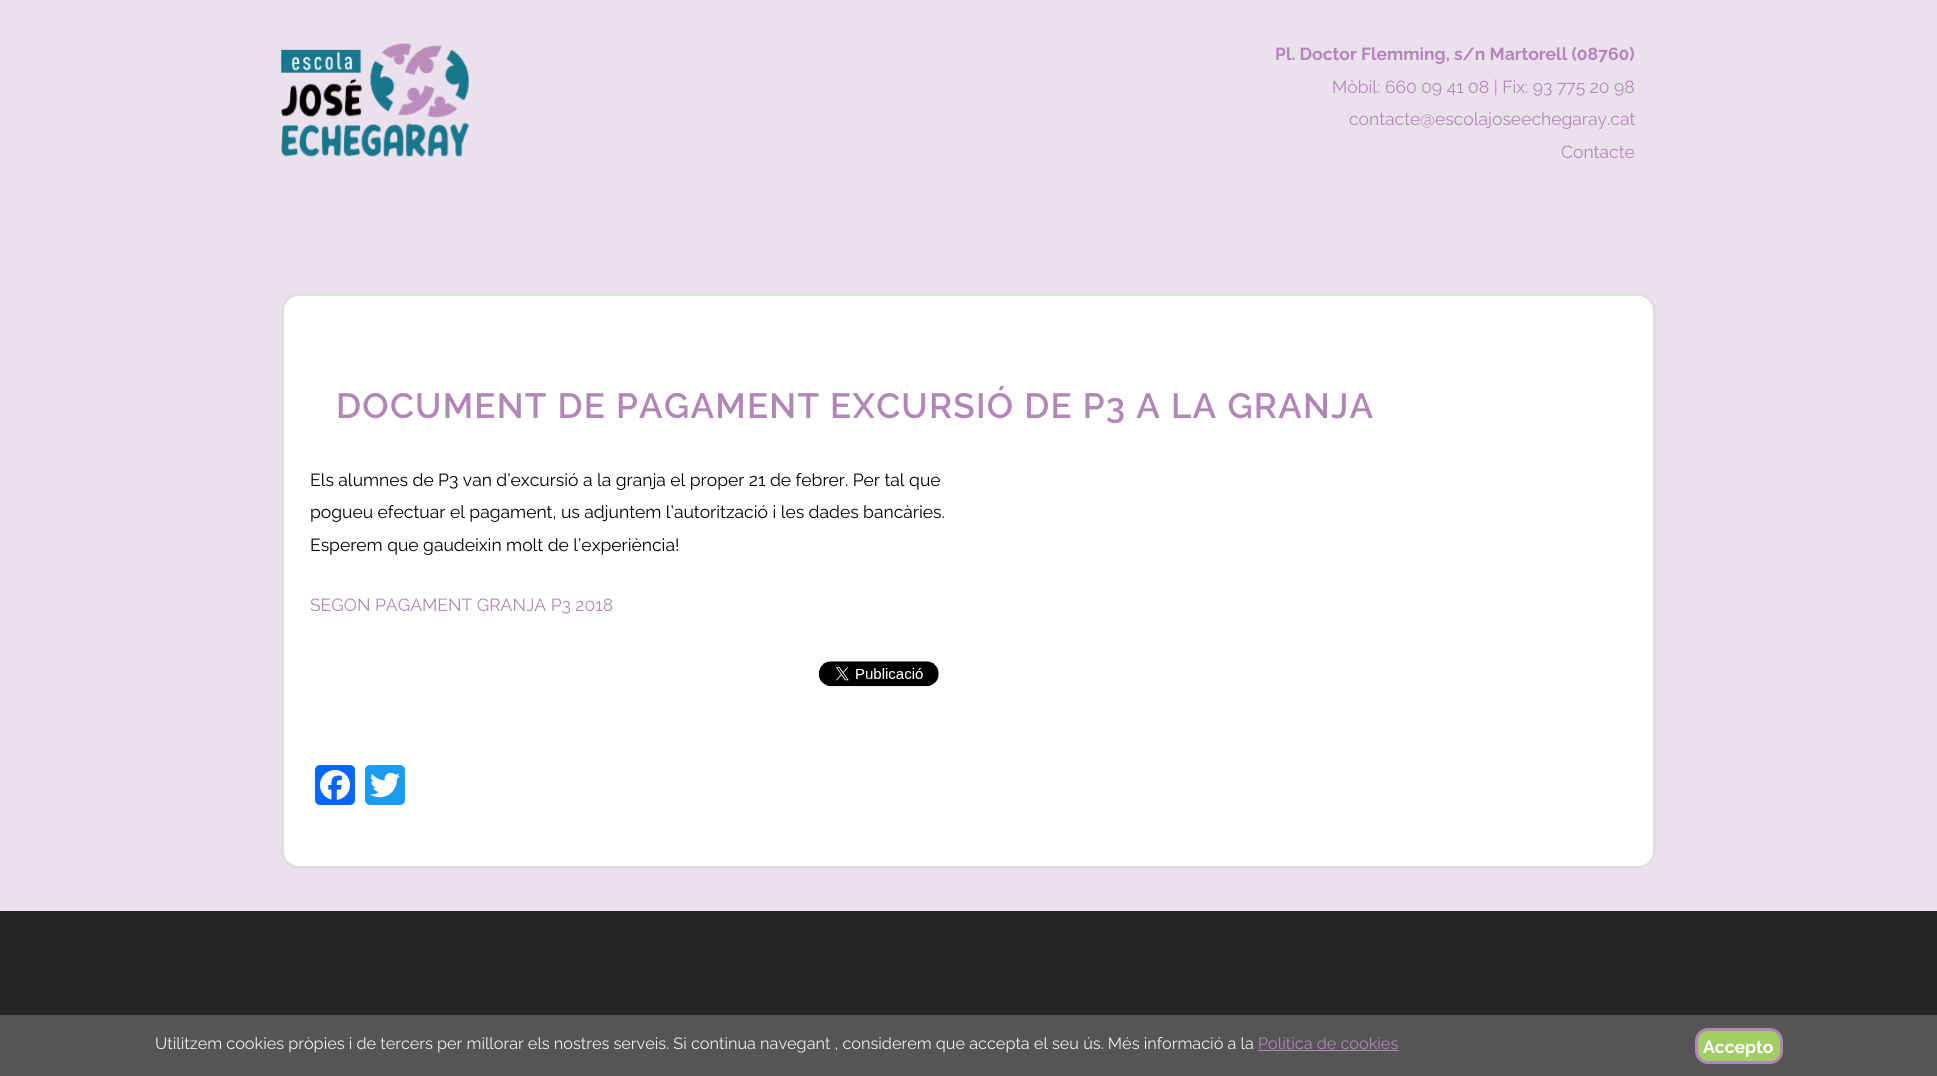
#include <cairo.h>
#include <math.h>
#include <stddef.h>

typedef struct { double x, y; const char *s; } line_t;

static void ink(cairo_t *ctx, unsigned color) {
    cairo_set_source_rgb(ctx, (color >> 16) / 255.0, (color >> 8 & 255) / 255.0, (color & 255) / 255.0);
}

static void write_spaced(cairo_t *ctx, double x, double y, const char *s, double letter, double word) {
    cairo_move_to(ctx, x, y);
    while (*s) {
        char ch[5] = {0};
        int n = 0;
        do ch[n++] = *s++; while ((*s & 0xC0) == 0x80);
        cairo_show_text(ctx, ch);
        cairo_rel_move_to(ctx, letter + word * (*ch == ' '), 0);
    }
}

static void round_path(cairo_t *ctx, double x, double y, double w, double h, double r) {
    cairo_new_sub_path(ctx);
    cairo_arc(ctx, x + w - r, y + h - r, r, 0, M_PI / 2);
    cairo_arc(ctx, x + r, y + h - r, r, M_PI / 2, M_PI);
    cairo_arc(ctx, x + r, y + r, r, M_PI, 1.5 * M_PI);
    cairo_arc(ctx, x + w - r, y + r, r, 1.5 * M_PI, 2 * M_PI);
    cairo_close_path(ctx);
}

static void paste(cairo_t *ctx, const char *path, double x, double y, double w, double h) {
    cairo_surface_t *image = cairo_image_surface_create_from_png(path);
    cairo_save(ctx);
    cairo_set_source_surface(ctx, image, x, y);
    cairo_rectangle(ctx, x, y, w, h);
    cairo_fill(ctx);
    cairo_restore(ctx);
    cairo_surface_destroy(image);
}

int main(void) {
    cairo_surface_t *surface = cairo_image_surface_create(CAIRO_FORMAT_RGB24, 1937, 1076);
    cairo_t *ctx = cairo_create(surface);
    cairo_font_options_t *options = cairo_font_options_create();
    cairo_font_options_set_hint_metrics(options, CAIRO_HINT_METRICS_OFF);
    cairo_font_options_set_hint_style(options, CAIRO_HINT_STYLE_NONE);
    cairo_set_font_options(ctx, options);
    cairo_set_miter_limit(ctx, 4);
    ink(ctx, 0xEBE1ED);
    cairo_paint(ctx);
    paste(ctx, "media/1.png", 281, 43, 188, 114);
    cairo_select_font_face(ctx, "Raleway", CAIRO_FONT_SLANT_NORMAL, CAIRO_FONT_WEIGHT_BOLD);
    cairo_set_font_size(ctx, 17.5);
    ink(ctx, 0xB286B9);
    cairo_move_to(ctx, 1275, 60);
    cairo_show_text(ctx, "Pl. Doctor Flemming, s/n Martorell (08760)");
    cairo_select_font_face(ctx, "Raleway", CAIRO_FONT_SLANT_NORMAL, CAIRO_FONT_WEIGHT_NORMAL);
    {
        static const line_t items[] = {
            {1332, 93, "Mòbil: 660 09 41 08 | Fix: 93 775 20 98"},
            {1349, 125, "contacte@escolajoseechegaray.cat"},
            {1561, 158, "Contacte"},
        };
        for (size_t i = 0; i < sizeof items / sizeof *items; i++) {
            cairo_move_to(ctx, items[i].x, items[i].y);
            cairo_show_text(ctx, items[i].s);
        }
    }
    ink(ctx, 0xFFFFFF);
    round_path(ctx, 282.5, 294.5, 1372, 573, 16.5);
    cairo_fill_preserve(ctx);
    ink(ctx, 0xDFDFDF);
    cairo_set_line_width(ctx, 3);
    cairo_stroke(ctx);
    cairo_select_font_face(ctx, "Raleway SemiBold", CAIRO_FONT_SLANT_NORMAL, CAIRO_FONT_WEIGHT_NORMAL);
    cairo_set_font_size(ctx, 35);
    ink(ctx, 0xB286B9);
    write_spaced(ctx, 336, 418, "DOCUMENT DE PAGAMENT EXCURSIÓ DE P3 A LA GRANJA", 1.25, 0);
    cairo_select_font_face(ctx, "Raleway", CAIRO_FONT_SLANT_NORMAL, CAIRO_FONT_WEIGHT_NORMAL);
    cairo_set_font_size(ctx, 17.5);
    ink(ctx, 0x000000);
    {
        static const line_t items[] = {
            {310, 486, "Els alumnes de P3 van d’excursió a la granja el proper 21 de febrer. Per tal que"},
            {310, 518, "pogueu efectuar el pagament, us adjuntem l’autorització i les dades bancàries."},
            {310, 551, "Esperem que gaudeixin molt de l’experiència!"},
        };
        for (size_t i = 0; i < sizeof items / sizeof *items; i++) {
            cairo_move_to(ctx, items[i].x, items[i].y);
            cairo_show_text(ctx, items[i].s);
        }
    }
    ink(ctx, 0xB286B9);
    cairo_move_to(ctx, 310, 611);
    cairo_show_text(ctx, "SEGON PAGAMENT GRANJA P3 2018");
    paste(ctx, "media/2.png", 818, 661, 121, 26);
    ink(ctx, 0x0866FF);
    round_path(ctx, 315, 765, 40, 40, 5);
    cairo_fill(ctx);
    paste(ctx, "media/3.png", 320, 770, 30, 30);
    ink(ctx, 0x1D9BF0);
    round_path(ctx, 365, 765, 40, 40, 5);
    cairo_fill(ctx);
    paste(ctx, "media/4.png", 370, 772, 30, 26);
    ink(ctx, 0x262626);
    cairo_rectangle(ctx, 0, 911, 1937, 104);
    cairo_fill(ctx);
    ink(ctx, 0x555555);
    cairo_rectangle(ctx, 0, 1015, 1937, 61);
    cairo_fill(ctx);
    cairo_set_font_size(ctx, 16.25);
    ink(ctx, 0xEEEEEE);
    cairo_move_to(ctx, 155, 1049);
    cairo_show_text(ctx, "Utilitzem cookies pròpies i de tercers per millorar els nostres serveis. Si continua navegant , considerem que accepta el seu ús. Més informació a la");
    ink(ctx, 0xB286B9);
    cairo_move_to(ctx, 1258, 1049);
    cairo_show_text(ctx, "Política de cookies");
    cairo_rectangle(ctx, 1258, 1050, 141, 1);
    cairo_fill(ctx);
    ink(ctx, 0xA1CF64);
    round_path(ctx, 1696.5, 1029.5, 85, 33, 11.5);
    cairo_fill_preserve(ctx);
    ink(ctx, 0xB286B9);
    cairo_stroke(ctx);
    cairo_select_font_face(ctx, "Raleway", CAIRO_FONT_SLANT_NORMAL, CAIRO_FONT_WEIGHT_BOLD);
    cairo_set_font_size(ctx, 17.5);
    ink(ctx, 0xFFFFFF);
    cairo_move_to(ctx, 1703, 1053);
    cairo_show_text(ctx, "Accepto");
    cairo_surface_write_to_png(surface, "image.png");
    cairo_font_options_destroy(options);
    cairo_destroy(ctx);
    cairo_surface_destroy(surface);
    return 0;
}
